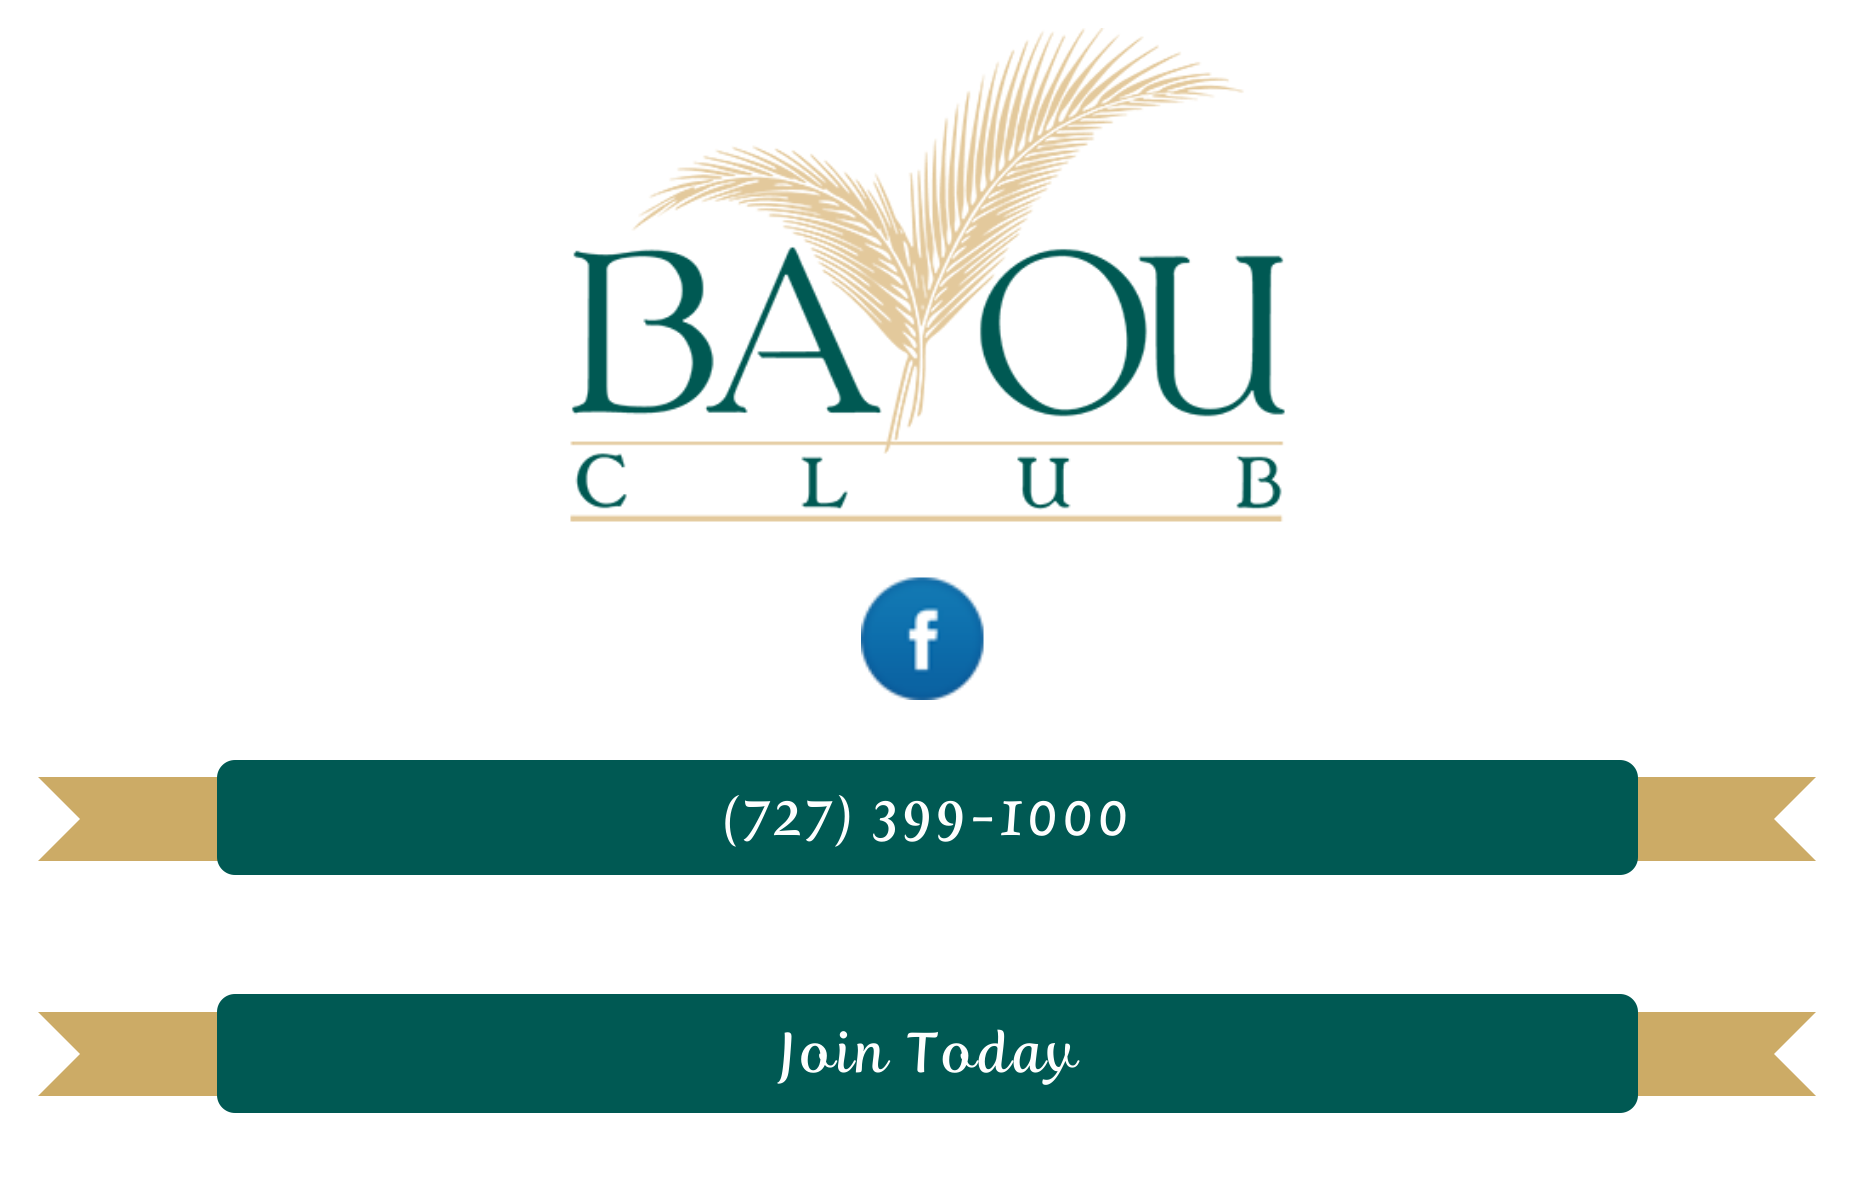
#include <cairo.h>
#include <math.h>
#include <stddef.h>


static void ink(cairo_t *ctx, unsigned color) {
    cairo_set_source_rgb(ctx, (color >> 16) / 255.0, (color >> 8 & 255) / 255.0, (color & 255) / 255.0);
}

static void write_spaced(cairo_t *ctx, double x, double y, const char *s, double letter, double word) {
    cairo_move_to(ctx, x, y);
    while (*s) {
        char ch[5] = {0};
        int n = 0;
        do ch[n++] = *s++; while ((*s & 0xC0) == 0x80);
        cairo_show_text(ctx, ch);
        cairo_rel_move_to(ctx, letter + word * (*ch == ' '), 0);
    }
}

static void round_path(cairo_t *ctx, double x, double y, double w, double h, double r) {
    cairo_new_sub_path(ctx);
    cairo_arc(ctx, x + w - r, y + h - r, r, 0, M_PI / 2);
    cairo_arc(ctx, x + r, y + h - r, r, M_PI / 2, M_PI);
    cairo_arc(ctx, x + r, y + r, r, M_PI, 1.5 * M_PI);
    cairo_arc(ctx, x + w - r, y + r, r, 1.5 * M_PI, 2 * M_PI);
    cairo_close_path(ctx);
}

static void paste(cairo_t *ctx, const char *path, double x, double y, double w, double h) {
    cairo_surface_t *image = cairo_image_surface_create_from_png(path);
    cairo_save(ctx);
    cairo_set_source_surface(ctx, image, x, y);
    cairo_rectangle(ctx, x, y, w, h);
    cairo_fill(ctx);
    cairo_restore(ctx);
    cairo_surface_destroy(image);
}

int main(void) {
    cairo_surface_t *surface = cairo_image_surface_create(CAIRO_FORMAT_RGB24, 1855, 1198);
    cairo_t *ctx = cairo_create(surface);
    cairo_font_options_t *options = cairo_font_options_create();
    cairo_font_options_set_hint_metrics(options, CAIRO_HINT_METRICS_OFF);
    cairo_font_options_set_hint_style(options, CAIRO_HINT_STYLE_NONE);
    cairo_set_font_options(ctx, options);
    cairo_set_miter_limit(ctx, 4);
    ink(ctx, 0xFFFFFF);
    cairo_paint(ctx);
    paste(ctx, "media/1.png", 570, 28, 715, 494);
    paste(ctx, "media/2.png", 861, 577, 123, 123);
    ink(ctx, 0xCCAB66);
    cairo_new_path(ctx);
    cairo_move_to(ctx, 38, 777);
    cairo_line_to(ctx, 396, 777);
    cairo_line_to(ctx, 396, 819);
    cairo_line_to(ctx, 80, 819);
    cairo_close_path(ctx);
    cairo_fill(ctx);
    cairo_new_path(ctx);
    cairo_move_to(ctx, 396, 861);
    cairo_line_to(ctx, 38, 861);
    cairo_line_to(ctx, 80, 819);
    cairo_line_to(ctx, 396, 819);
    cairo_close_path(ctx);
    cairo_fill(ctx);
    cairo_new_path(ctx);
    cairo_move_to(ctx, 1460, 777);
    cairo_line_to(ctx, 1816, 777);
    cairo_line_to(ctx, 1774, 819);
    cairo_line_to(ctx, 1460, 819);
    cairo_close_path(ctx);
    cairo_fill(ctx);
    cairo_new_path(ctx);
    cairo_move_to(ctx, 1816, 861);
    cairo_line_to(ctx, 1460, 861);
    cairo_line_to(ctx, 1460, 819);
    cairo_line_to(ctx, 1774, 819);
    cairo_close_path(ctx);
    cairo_fill(ctx);
    ink(ctx, 0x005953);
    round_path(ctx, 217, 760, 1421, 115, 18);
    cairo_fill(ctx);
    cairo_select_font_face(ctx, "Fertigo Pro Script", CAIRO_FONT_SLANT_NORMAL, CAIRO_FONT_WEIGHT_NORMAL);
    cairo_set_font_size(ctx, 56);
    ink(ctx, 0xFEFEFE);
    write_spaced(ctx, 723, 835, "(727) 399-1000", 3.5, 0);
    ink(ctx, 0xCCAB66);
    cairo_new_path(ctx);
    cairo_move_to(ctx, 38, 1012);
    cairo_line_to(ctx, 396, 1012);
    cairo_line_to(ctx, 396, 1054);
    cairo_line_to(ctx, 80, 1054);
    cairo_close_path(ctx);
    cairo_fill(ctx);
    cairo_new_path(ctx);
    cairo_move_to(ctx, 396, 1096);
    cairo_line_to(ctx, 38, 1096);
    cairo_line_to(ctx, 80, 1054);
    cairo_line_to(ctx, 396, 1054);
    cairo_close_path(ctx);
    cairo_fill(ctx);
    cairo_new_path(ctx);
    cairo_move_to(ctx, 1460, 1012);
    cairo_line_to(ctx, 1816, 1012);
    cairo_line_to(ctx, 1774, 1054);
    cairo_line_to(ctx, 1460, 1054);
    cairo_close_path(ctx);
    cairo_fill(ctx);
    cairo_new_path(ctx);
    cairo_move_to(ctx, 1816, 1096);
    cairo_line_to(ctx, 1460, 1096);
    cairo_line_to(ctx, 1460, 1054);
    cairo_line_to(ctx, 1774, 1054);
    cairo_close_path(ctx);
    cairo_fill(ctx);
    ink(ctx, 0x005953);
    round_path(ctx, 217, 994, 1421, 119, 18);
    cairo_fill(ctx);
    ink(ctx, 0xFEFEFE);
    write_spaced(ctx, 778, 1072, "Join Today", 3.5, 0);
    cairo_surface_write_to_png(surface, "image.png");
    cairo_font_options_destroy(options);
    cairo_destroy(ctx);
    cairo_surface_destroy(surface);
    return 0;
}
